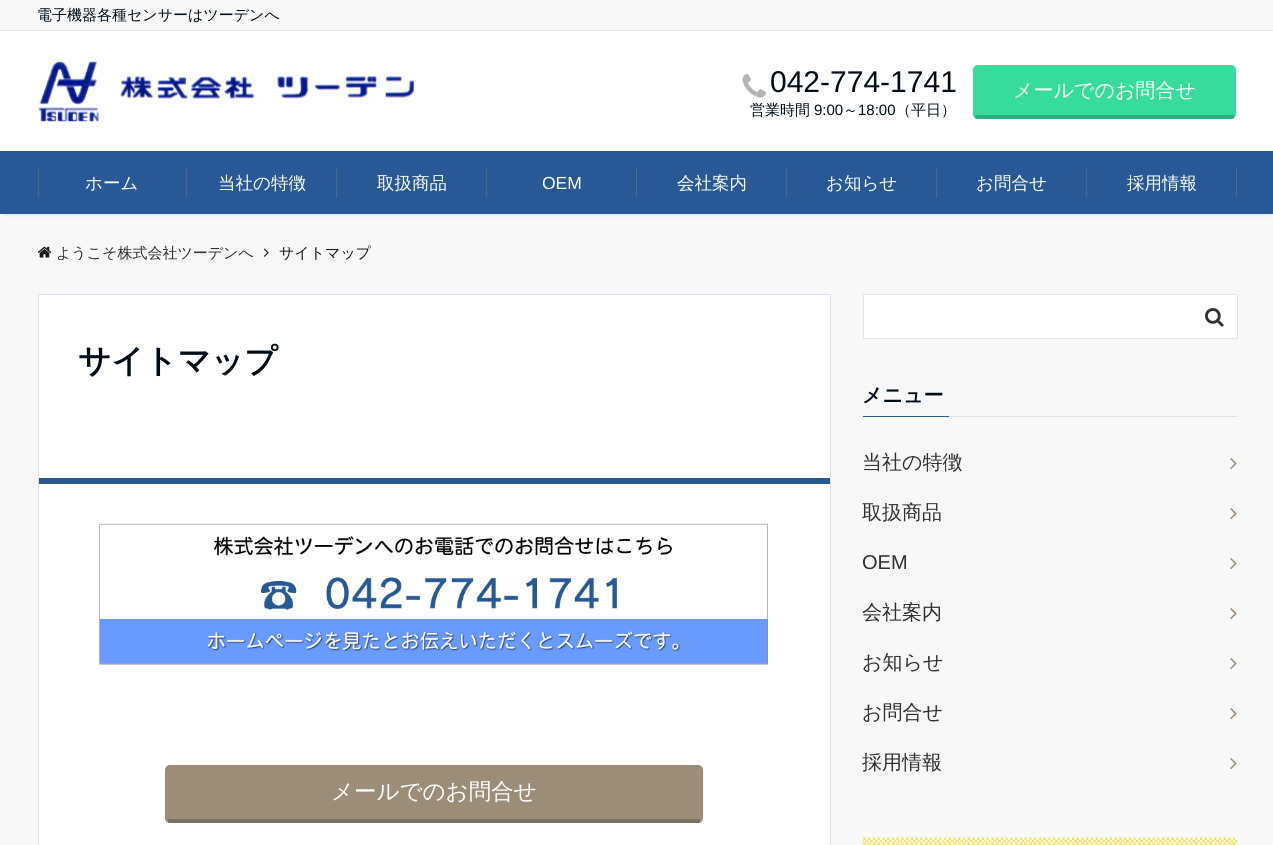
#include <cairo.h>
#include <math.h>
#include <stddef.h>


static void ink(cairo_t *ctx, unsigned color) {
    cairo_set_source_rgb(ctx, (color >> 16) / 255.0, (color >> 8 & 255) / 255.0, (color & 255) / 255.0);
}

static void round_path(cairo_t *ctx, double x, double y, double w, double h, double r) {
    cairo_new_sub_path(ctx);
    cairo_arc(ctx, x + w - r, y + h - r, r, 0, M_PI / 2);
    cairo_arc(ctx, x + r, y + h - r, r, M_PI / 2, M_PI);
    cairo_arc(ctx, x + r, y + r, r, M_PI, 1.5 * M_PI);
    cairo_arc(ctx, x + w - r, y + r, r, 1.5 * M_PI, 2 * M_PI);
    cairo_close_path(ctx);
}

static void blur_box(cairo_t *ctx, double x, double y, double w, double h, double r, double blur, double alpha) {
    cairo_push_group_with_content(ctx, CAIRO_CONTENT_ALPHA);
    cairo_set_operator(ctx, CAIRO_OPERATOR_SOURCE);
    for (int i = 15; i >= -15 && fmin(w, h) + blur * i / 3 > 0; i -= 2) {
        double e = blur * i / 6;
        cairo_set_source_rgba(ctx, 0, 0, 0, alpha * erfc((i - 1) / 8.5) / 2);
        round_path(ctx, x - e, y - e, w + 2 * e, h + 2 * e, fmax(0, fmin(r + e + blur * .6, fmin(w, h) / 2 + e)));
        cairo_fill(ctx);
    }
    cairo_pattern_t *soft = cairo_pop_group(ctx);
    cairo_mask(ctx, soft);
    cairo_pattern_destroy(soft);
}

static void paste(cairo_t *ctx, const char *path, double x, double y, double w, double h) {
    cairo_surface_t *image = cairo_image_surface_create_from_png(path);
    cairo_save(ctx);
    cairo_set_source_surface(ctx, image, x, y);
    cairo_rectangle(ctx, x, y, w, h);
    cairo_fill(ctx);
    cairo_restore(ctx);
    cairo_surface_destroy(image);
}

int main(void) {
    cairo_surface_t *surface = cairo_image_surface_create(CAIRO_FORMAT_RGB24, 1273, 845);
    cairo_t *ctx = cairo_create(surface);
    cairo_font_options_t *options = cairo_font_options_create();
    cairo_font_options_set_hint_metrics(options, CAIRO_HINT_METRICS_OFF);
    cairo_font_options_set_hint_style(options, CAIRO_HINT_STYLE_NONE);
    cairo_set_font_options(ctx, options);
    cairo_set_miter_limit(ctx, 4);
    ink(ctx, 0xF8F8F8);
    cairo_paint(ctx);
    ink(ctx, 0xE2E5E8);
    cairo_rectangle(ctx, 0, 30, 1273, 1);
    cairo_fill(ctx);
    cairo_select_font_face(ctx, "WenQuanYi Zen Hei Medium", CAIRO_FONT_SLANT_NORMAL, CAIRO_FONT_WEIGHT_NORMAL);
    cairo_set_font_size(ctx, 15);
    ink(ctx, 0x000C15);
    cairo_move_to(ctx, 37, 20);
    cairo_show_text(ctx, "電子機器各種センサーはツーデンへ");
    ink(ctx, 0xFFFFFF);
    cairo_rectangle(ctx, 0, 31, 1273, 120);
    cairo_fill(ctx);
    paste(ctx, "media/1.png", 38, 61, 376, 61);
    paste(ctx, "media/2.png", 742, 74, 24, 24);
    cairo_select_font_face(ctx, "Liberation Sans", CAIRO_FONT_SLANT_NORMAL, CAIRO_FONT_WEIGHT_NORMAL);
    cairo_set_font_size(ctx, 30);
    ink(ctx, 0x000C15);
    cairo_move_to(ctx, 770, 92);
    cairo_show_text(ctx, "042-774-1741");
    cairo_select_font_face(ctx, "WenQuanYi Zen Hei Medium", CAIRO_FONT_SLANT_NORMAL, CAIRO_FONT_WEIGHT_NORMAL);
    cairo_set_font_size(ctx, 15);
    cairo_move_to(ctx, 750, 115);
    cairo_show_text(ctx, "営業時間");
    cairo_select_font_face(ctx, "Liberation Sans", CAIRO_FONT_SLANT_NORMAL, CAIRO_FONT_WEIGHT_NORMAL);
    cairo_move_to(ctx, 814, 115);
    cairo_show_text(ctx, "9:00");
    cairo_select_font_face(ctx, "WenQuanYi Zen Hei Medium", CAIRO_FONT_SLANT_NORMAL, CAIRO_FONT_WEIGHT_NORMAL);
    cairo_move_to(ctx, 843, 115);
    cairo_show_text(ctx, "～");
    cairo_select_font_face(ctx, "Liberation Sans", CAIRO_FONT_SLANT_NORMAL, CAIRO_FONT_WEIGHT_NORMAL);
    cairo_move_to(ctx, 858, 115);
    cairo_show_text(ctx, "18:00");
    cairo_select_font_face(ctx, "WenQuanYi Zen Hei Medium", CAIRO_FONT_SLANT_NORMAL, CAIRO_FONT_WEIGHT_NORMAL);
    cairo_move_to(ctx, 896, 115);
    cairo_show_text(ctx, "（平日）");
    ink(ctx, 0x37DB9B);
    round_path(ctx, 973, 65, 263, 54, 5);
    cairo_fill(ctx);
    cairo_set_source_rgba(ctx, 0, 0, 0, 0.2);
    cairo_rectangle(ctx, 975, 115, 259, 4);
    cairo_fill(ctx);
    cairo_set_font_size(ctx, 20);
    ink(ctx, 0xFFFFFF);
    cairo_move_to(ctx, 1013, 97);
    cairo_show_text(ctx, "メールでのお問合せ");
    ink(ctx, 0x000000);
    blur_box(ctx, 4, 158, 1266, 55, 0, 2.5, 0.2);
    ink(ctx, 0x285996);
    cairo_rectangle(ctx, 0, 151, 1273, 63);
    cairo_fill(ctx);
    ink(ctx, 0x4B698D);
    cairo_rectangle(ctx, 38, 168, 1, 30);
    cairo_fill(ctx);
    cairo_set_font_size(ctx, 17.5);
    ink(ctx, 0xFFFFFF);
    cairo_move_to(ctx, 85, 189);
    cairo_show_text(ctx, "ホーム");
    ink(ctx, 0x4B698D);
    cairo_rectangle(ctx, 186, 168, 1, 30);
    cairo_fill(ctx);
    ink(ctx, 0xFFFFFF);
    cairo_move_to(ctx, 218, 189);
    cairo_show_text(ctx, "当社の特徴");
    ink(ctx, 0x4B698D);
    cairo_rectangle(ctx, 336, 168, 1, 30);
    cairo_fill(ctx);
    ink(ctx, 0xFFFFFF);
    cairo_move_to(ctx, 377, 189);
    cairo_show_text(ctx, "取扱商品");
    ink(ctx, 0x4B698D);
    cairo_rectangle(ctx, 486, 168, 1, 30);
    cairo_fill(ctx);
    cairo_select_font_face(ctx, "Liberation Sans", CAIRO_FONT_SLANT_NORMAL, CAIRO_FONT_WEIGHT_NORMAL);
    ink(ctx, 0xFFFFFF);
    cairo_move_to(ctx, 542, 189);
    cairo_show_text(ctx, "OEM");
    ink(ctx, 0x4B698D);
    cairo_rectangle(ctx, 636, 168, 1, 30);
    cairo_fill(ctx);
    cairo_select_font_face(ctx, "WenQuanYi Zen Hei Medium", CAIRO_FONT_SLANT_NORMAL, CAIRO_FONT_WEIGHT_NORMAL);
    ink(ctx, 0xFFFFFF);
    cairo_move_to(ctx, 677, 189);
    cairo_show_text(ctx, "会社案内");
    ink(ctx, 0x4B698D);
    cairo_rectangle(ctx, 786, 168, 1, 30);
    cairo_fill(ctx);
    ink(ctx, 0xFFFFFF);
    cairo_move_to(ctx, 826, 189);
    cairo_show_text(ctx, "お知らせ");
    ink(ctx, 0x4B698D);
    cairo_rectangle(ctx, 936, 168, 1, 30);
    cairo_fill(ctx);
    ink(ctx, 0xFFFFFF);
    cairo_move_to(ctx, 976, 189);
    cairo_show_text(ctx, "お問合せ");
    ink(ctx, 0x4B698D);
    cairo_rectangle(ctx, 1086, 168, 1, 30);
    cairo_fill(ctx);
    ink(ctx, 0xFFFFFF);
    cairo_move_to(ctx, 1127, 189);
    cairo_show_text(ctx, "採用情報");
    ink(ctx, 0x4B698D);
    cairo_rectangle(ctx, 1236, 168, 1, 30);
    cairo_fill(ctx);
    paste(ctx, "media/3.png", 38, 246, 14, 12);
    cairo_save(ctx);
    cairo_rectangle(ctx, 38, 245, 241, 15);
    cairo_clip(ctx);
    cairo_set_font_size(ctx, 15);
    ink(ctx, 0x303030);
    cairo_move_to(ctx, 56, 258);
    cairo_show_text(ctx, "ようこそ株式会社ツーデンへ");
    cairo_restore(ctx);
    paste(ctx, "media/4.png", 263, 248, 6, 9);
    cairo_set_font_size(ctx, 15);
    ink(ctx, 0x161410);
    cairo_move_to(ctx, 279, 258);
    cairo_show_text(ctx, "サイトマップ");
    ink(ctx, 0xFFFFFF);
    cairo_rectangle(ctx, 38.5, 294.5, 792, 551);
    cairo_fill_preserve(ctx);
    ink(ctx, 0xD9E2F0);
    cairo_set_line_width(ctx, 1);
    cairo_stroke(ctx);
    cairo_select_font_face(ctx, "WenQuanYi Zen Hei", CAIRO_FONT_SLANT_NORMAL, CAIRO_FONT_WEIGHT_BOLD);
    cairo_set_font_size(ctx, 32.5);
    ink(ctx, 0x000C15);
    cairo_move_to(ctx, 78, 372);
    cairo_show_text(ctx, "サイトマップ");
    ink(ctx, 0x285996);
    cairo_rectangle(ctx, 39, 478, 791, 6);
    cairo_fill(ctx);
    paste(ctx, "media/5.png", 98, 523, 670, 142);
    ink(ctx, 0x9B8D77);
    round_path(ctx, 165, 765, 538, 58, 5);
    cairo_fill(ctx);
    cairo_set_source_rgba(ctx, 0, 0, 0, 0.2);
    cairo_rectangle(ctx, 168, 819, 532, 4);
    cairo_fill(ctx);
    cairo_select_font_face(ctx, "WenQuanYi Zen Hei Medium", CAIRO_FONT_SLANT_NORMAL, CAIRO_FONT_WEIGHT_NORMAL);
    cairo_set_font_size(ctx, 22.5);
    ink(ctx, 0xFFFFFF);
    cairo_move_to(ctx, 331, 799);
    cairo_show_text(ctx, "メールでのお問合せ");
    round_path(ctx, 863.5, 294.5, 374, 44, 0.5);
    cairo_fill_preserve(ctx);
    ink(ctx, 0xE2E5E8);
    cairo_stroke(ctx);
    paste(ctx, "media/6.png", 1205, 308, 19, 19);
    cairo_rectangle(ctx, 949, 416, 289, 1);
    cairo_fill(ctx);
    ink(ctx, 0x285996);
    cairo_rectangle(ctx, 863, 416, 86, 1);
    cairo_fill(ctx);
    cairo_select_font_face(ctx, "WenQuanYi Zen Hei", CAIRO_FONT_SLANT_NORMAL, CAIRO_FONT_WEIGHT_BOLD);
    cairo_set_font_size(ctx, 20);
    ink(ctx, 0x000C15);
    cairo_move_to(ctx, 862, 402);
    cairo_show_text(ctx, "メニュー");
    cairo_select_font_face(ctx, "WenQuanYi Zen Hei Medium", CAIRO_FONT_SLANT_NORMAL, CAIRO_FONT_WEIGHT_NORMAL);
    ink(ctx, 0x303030);
    cairo_move_to(ctx, 862, 469);
    cairo_show_text(ctx, "当社の特徴");
    paste(ctx, "media/7.png", 1230, 458, 7, 12);
    cairo_move_to(ctx, 862, 519);
    cairo_show_text(ctx, "取扱商品");
    paste(ctx, "media/7.png", 1230, 508, 7, 12);
    cairo_select_font_face(ctx, "Liberation Sans", CAIRO_FONT_SLANT_NORMAL, CAIRO_FONT_WEIGHT_NORMAL);
    cairo_move_to(ctx, 862, 569);
    cairo_show_text(ctx, "OEM");
    paste(ctx, "media/7.png", 1230, 558, 7, 12);
    cairo_select_font_face(ctx, "WenQuanYi Zen Hei Medium", CAIRO_FONT_SLANT_NORMAL, CAIRO_FONT_WEIGHT_NORMAL);
    cairo_move_to(ctx, 862, 619);
    cairo_show_text(ctx, "会社案内");
    paste(ctx, "media/7.png", 1230, 608, 7, 12);
    cairo_move_to(ctx, 862, 669);
    cairo_show_text(ctx, "お知らせ");
    paste(ctx, "media/7.png", 1230, 658, 7, 12);
    cairo_move_to(ctx, 862, 719);
    cairo_show_text(ctx, "お問合せ");
    paste(ctx, "media/7.png", 1230, 708, 7, 12);
    cairo_move_to(ctx, 862, 769);
    cairo_show_text(ctx, "採用情報");
    paste(ctx, "media/7.png", 1230, 758, 7, 12);
    paste(ctx, "media/8.png", 862, 837, 376, 8);
    cairo_surface_write_to_png(surface, "image.png");
    cairo_font_options_destroy(options);
    cairo_destroy(ctx);
    cairo_surface_destroy(surface);
    return 0;
}
